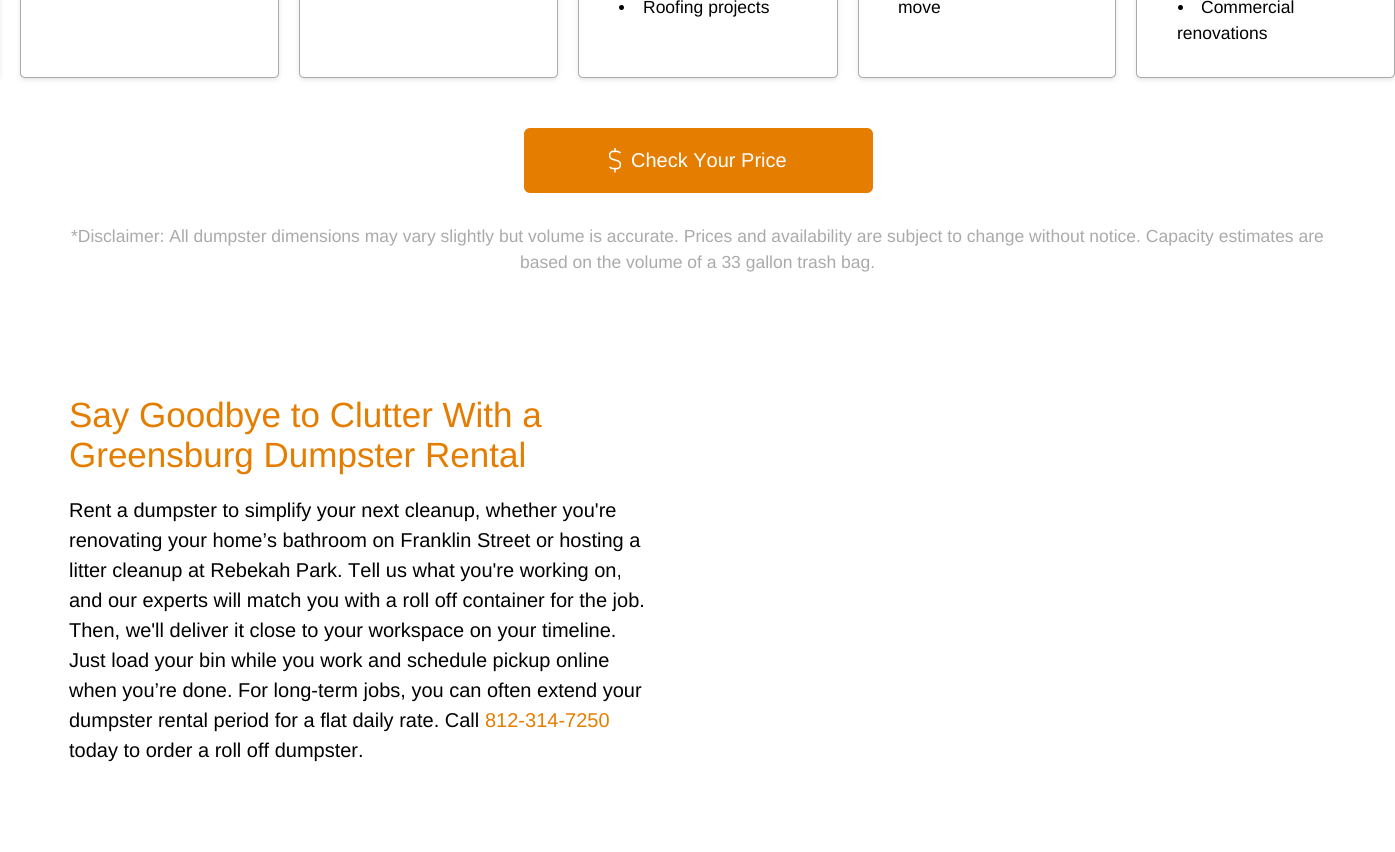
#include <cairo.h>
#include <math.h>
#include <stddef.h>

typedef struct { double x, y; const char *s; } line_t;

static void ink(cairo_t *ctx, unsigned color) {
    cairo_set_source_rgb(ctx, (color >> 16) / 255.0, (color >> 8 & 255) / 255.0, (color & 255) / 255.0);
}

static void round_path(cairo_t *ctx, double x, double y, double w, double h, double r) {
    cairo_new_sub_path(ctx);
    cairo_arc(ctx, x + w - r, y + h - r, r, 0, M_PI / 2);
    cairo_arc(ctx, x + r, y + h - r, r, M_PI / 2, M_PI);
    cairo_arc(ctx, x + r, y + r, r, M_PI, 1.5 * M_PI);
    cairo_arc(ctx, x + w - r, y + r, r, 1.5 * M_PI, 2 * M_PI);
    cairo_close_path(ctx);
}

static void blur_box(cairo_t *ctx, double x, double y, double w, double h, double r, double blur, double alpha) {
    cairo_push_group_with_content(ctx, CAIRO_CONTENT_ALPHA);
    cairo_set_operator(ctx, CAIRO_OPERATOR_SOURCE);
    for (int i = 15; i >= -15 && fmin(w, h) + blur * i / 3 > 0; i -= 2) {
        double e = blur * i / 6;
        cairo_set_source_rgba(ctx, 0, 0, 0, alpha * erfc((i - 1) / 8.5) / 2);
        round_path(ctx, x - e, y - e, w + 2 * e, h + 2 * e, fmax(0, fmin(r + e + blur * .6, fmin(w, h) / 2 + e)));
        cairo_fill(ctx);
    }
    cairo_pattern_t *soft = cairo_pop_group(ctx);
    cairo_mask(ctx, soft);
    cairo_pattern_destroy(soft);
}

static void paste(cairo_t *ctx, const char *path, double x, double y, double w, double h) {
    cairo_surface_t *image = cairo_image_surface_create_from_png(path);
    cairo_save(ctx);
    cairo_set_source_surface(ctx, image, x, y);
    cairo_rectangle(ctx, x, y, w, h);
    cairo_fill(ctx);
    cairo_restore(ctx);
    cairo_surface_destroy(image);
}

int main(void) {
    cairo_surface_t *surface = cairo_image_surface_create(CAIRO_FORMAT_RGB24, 1395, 852);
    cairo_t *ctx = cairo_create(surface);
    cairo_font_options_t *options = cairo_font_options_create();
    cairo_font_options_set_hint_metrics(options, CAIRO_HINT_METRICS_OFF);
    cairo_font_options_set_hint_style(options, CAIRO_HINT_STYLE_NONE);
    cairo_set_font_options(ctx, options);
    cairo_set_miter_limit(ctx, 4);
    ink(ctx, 0xFFFFFF);
    cairo_paint(ctx);
    ink(ctx, 0x000000);
    blur_box(ctx, -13, -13, 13, 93, 5, 2.5, 0.1);
    blur_box(ctx, 20, -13, 259, 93, 5, 2.5, 0.1);
    ink(ctx, 0xFFFFFF);
    round_path(ctx, 20.5, -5.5, 258, 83, 4.5);
    cairo_fill_preserve(ctx);
    ink(ctx, 0xAAAAAA);
    cairo_set_line_width(ctx, 1);
    cairo_stroke(ctx);
    ink(ctx, 0x000000);
    blur_box(ctx, 299, -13, 259, 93, 5, 2.5, 0.1);
    ink(ctx, 0xFFFFFF);
    round_path(ctx, 299.5, -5.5, 258, 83, 4.5);
    cairo_fill_preserve(ctx);
    ink(ctx, 0xAAAAAA);
    cairo_stroke(ctx);
    ink(ctx, 0x000000);
    blur_box(ctx, 578, -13, 260, 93, 5, 2.5, 0.1);
    ink(ctx, 0xFFFFFF);
    round_path(ctx, 578.5, -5.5, 259, 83, 4.5);
    cairo_fill_preserve(ctx);
    ink(ctx, 0xAAAAAA);
    cairo_stroke(ctx);
    ink(ctx, 0x000000);
    cairo_arc(ctx, 621.5, 7.5, 2.5, 0, 2 * M_PI);
    cairo_fill(ctx);
    cairo_select_font_face(ctx, "Liberation Sans", CAIRO_FONT_SLANT_NORMAL, CAIRO_FONT_WEIGHT_NORMAL);
    cairo_set_font_size(ctx, 17.5);
    cairo_move_to(ctx, 643, 13);
    cairo_show_text(ctx, "Roofing projects");
    ink(ctx, 0x000000);
    blur_box(ctx, 858, -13, 258, 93, 5, 2.5, 0.1);
    ink(ctx, 0xFFFFFF);
    round_path(ctx, 858.5, -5.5, 257, 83, 4.5);
    cairo_fill_preserve(ctx);
    ink(ctx, 0xAAAAAA);
    cairo_stroke(ctx);
    ink(ctx, 0x000000);
    cairo_move_to(ctx, 898, 13);
    cairo_show_text(ctx, "move");
    ink(ctx, 0x000000);
    blur_box(ctx, 1136, -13, 259, 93, 5, 2.5, 0.1);
    ink(ctx, 0xFFFFFF);
    round_path(ctx, 1136.5, -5.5, 258, 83, 4.5);
    cairo_fill_preserve(ctx);
    ink(ctx, 0xAAAAAA);
    cairo_stroke(ctx);
    ink(ctx, 0x000000);
    cairo_arc(ctx, 1180.5, 7.5, 2.5, 0, 2 * M_PI);
    cairo_fill(ctx);
    cairo_move_to(ctx, 1201, 13);
    cairo_show_text(ctx, "Commercial");
    cairo_move_to(ctx, 1177, 39);
    cairo_show_text(ctx, "renovations");
    ink(ctx, 0xE47D00);
    round_path(ctx, 524, 128, 349, 65, 6);
    cairo_fill(ctx);
    paste(ctx, "media/1.png", 609, 148, 12, 25);
    cairo_set_font_size(ctx, 20);
    ink(ctx, 0xFFFFFF);
    cairo_move_to(ctx, 631, 167);
    cairo_show_text(ctx, "Check Your Price");
    cairo_set_font_size(ctx, 17.5);
    ink(ctx, 0xAAAAAA);
    cairo_move_to(ctx, 71, 242);
    cairo_show_text(ctx, "*Disclaimer: All dumpster dimensions may vary slightly but volume is accurate. Prices and availability are subject to change without notice. Capacity estimates are");
    cairo_move_to(ctx, 520, 268);
    cairo_show_text(ctx, "based on the volume of a 33 gallon trash bag.");
    cairo_set_font_size(ctx, 35);
    ink(ctx, 0xE47D00);
    cairo_move_to(ctx, 69, 427);
    cairo_show_text(ctx, "Say Goodbye to Clutter With a");
    cairo_move_to(ctx, 69, 467);
    cairo_show_text(ctx, "Greensburg Dumpster Rental");
    cairo_set_font_size(ctx, 20);
    ink(ctx, 0x000000);
    {
        static const line_t items[] = {
            {69, 517, "Rent a dumpster to simplify your next cleanup, whether you're"},
            {69, 547, "renovating your home’s bathroom on Franklin Street or hosting a"},
            {69, 577, "litter cleanup at Rebekah Park. Tell us what you're working on,"},
            {69, 607, "and our experts will match you with a roll off container for the job."},
            {69, 637, "Then, we'll deliver it close to your workspace on your timeline."},
            {69, 667, "Just load your bin while you work and schedule pickup online"},
            {69, 697, "when you’re done. For long-term jobs, you can often extend your"},
            {69, 727, "dumpster rental period for a flat daily rate. Call"},
        };
        for (size_t i = 0; i < sizeof items / sizeof *items; i++) {
            cairo_move_to(ctx, items[i].x, items[i].y);
            cairo_show_text(ctx, items[i].s);
        }
    }
    ink(ctx, 0xE47D00);
    cairo_move_to(ctx, 485, 727);
    cairo_show_text(ctx, "812-314-7250");
    ink(ctx, 0x000000);
    cairo_move_to(ctx, 69, 757);
    cairo_show_text(ctx, "today to order a roll off dumpster.");
    cairo_surface_write_to_png(surface, "image.png");
    cairo_font_options_destroy(options);
    cairo_destroy(ctx);
    cairo_surface_destroy(surface);
    return 0;
}
